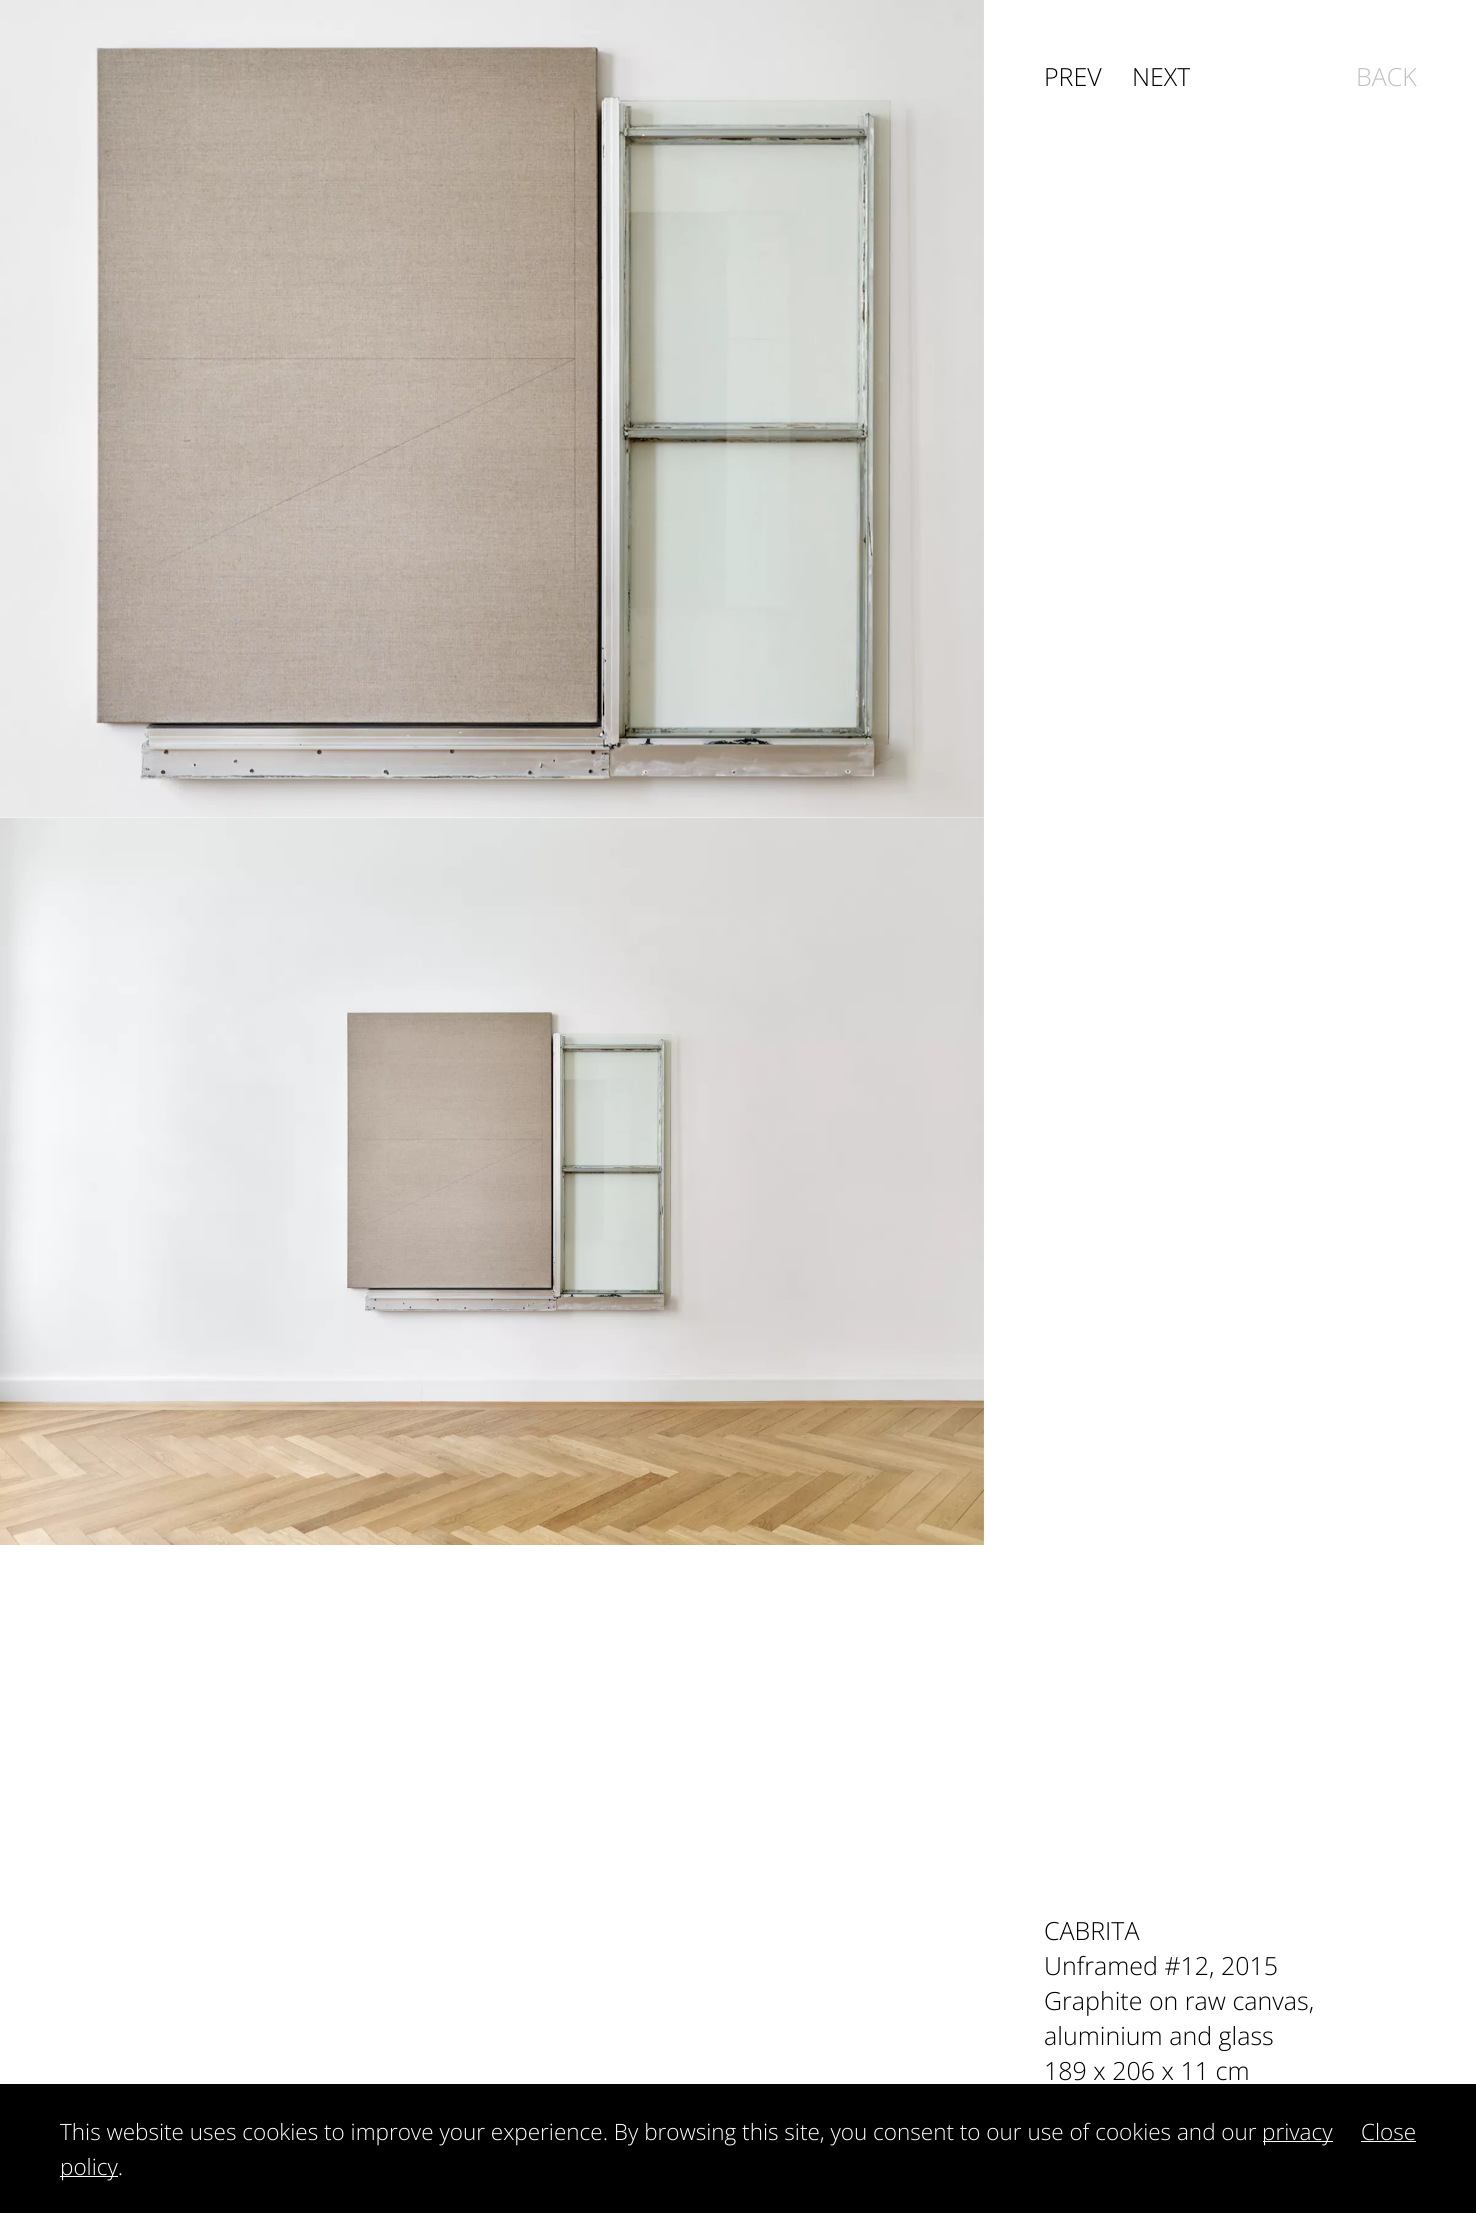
#include <cairo.h>
#include <math.h>
#include <stddef.h>

typedef struct { double x, y; const char *s; } line_t;

static void ink(cairo_t *ctx, unsigned color) {
    cairo_set_source_rgb(ctx, (color >> 16) / 255.0, (color >> 8 & 255) / 255.0, (color & 255) / 255.0);
}

static void paste(cairo_t *ctx, const char *path, double x, double y, double w, double h) {
    cairo_surface_t *image = cairo_image_surface_create_from_png(path);
    cairo_save(ctx);
    cairo_set_source_surface(ctx, image, x, y);
    cairo_rectangle(ctx, x, y, w, h);
    cairo_fill(ctx);
    cairo_restore(ctx);
    cairo_surface_destroy(image);
}

int main(void) {
    cairo_surface_t *surface = cairo_image_surface_create(CAIRO_FORMAT_RGB24, 1476, 2213);
    cairo_t *ctx = cairo_create(surface);
    cairo_font_options_t *options = cairo_font_options_create();
    cairo_font_options_set_hint_metrics(options, CAIRO_HINT_METRICS_OFF);
    cairo_font_options_set_hint_style(options, CAIRO_HINT_STYLE_NONE);
    cairo_set_font_options(ctx, options);
    cairo_set_miter_limit(ctx, 4);
    ink(ctx, 0xFFFFFF);
    cairo_paint(ctx);
    paste(ctx, "media/1.png", 0, 0, 984, 818);
    paste(ctx, "media/2.png", 0, 818, 984, 727);
    cairo_select_font_face(ctx, "Open Sans Light", CAIRO_FONT_SLANT_NORMAL, CAIRO_FONT_WEIGHT_NORMAL);
    cairo_set_font_size(ctx, 25);
    ink(ctx, 0x000000);
    cairo_move_to(ctx, 1044, 86);
    cairo_show_text(ctx, "PREV");
    cairo_move_to(ctx, 1132, 86);
    cairo_show_text(ctx, "NEXT");
    ink(ctx, 0xC0C0C0);
    cairo_move_to(ctx, 1356, 86);
    cairo_show_text(ctx, "BACK");
    ink(ctx, 0x000000);
    {
        static const line_t items[] = {
            {1044, 1940, "CABRITA"},
            {1044, 1975, "Unframed #12, 2015"},
            {1044, 2010, "Graphite on raw canvas,"},
            {1044, 2045, "aluminium and glass"},
            {1044, 2080, "189 x 206 x 11 cm"},
        };
        for (size_t i = 0; i < sizeof items / sizeof *items; i++) {
            cairo_move_to(ctx, items[i].x, items[i].y);
            cairo_show_text(ctx, items[i].s);
        }
    }
    cairo_rectangle(ctx, 0, 2084, 1476, 129);
    cairo_fill(ctx);
    cairo_set_font_size(ctx, 22.5);
    ink(ctx, 0xFFFFFF);
    cairo_move_to(ctx, 60, 2140);
    cairo_show_text(ctx, "This website uses cookies to improve your experience. By browsing this site, you consent to our use of cookies and our");
    cairo_rectangle(ctx, 1263, 2141, 70, 1);
    cairo_fill(ctx);
    cairo_move_to(ctx, 1262, 2140);
    cairo_show_text(ctx, "privacy");
    cairo_rectangle(ctx, 60, 2176, 58, 1);
    cairo_fill(ctx);
    cairo_move_to(ctx, 60, 2175);
    cairo_show_text(ctx, "policy.");
    cairo_move_to(ctx, 1361, 2140);
    cairo_show_text(ctx, "Close");
    cairo_rectangle(ctx, 1361, 2141, 55, 1);
    cairo_fill(ctx);
    cairo_surface_write_to_png(surface, "image.png");
    cairo_font_options_destroy(options);
    cairo_destroy(ctx);
    cairo_surface_destroy(surface);
    return 0;
}
